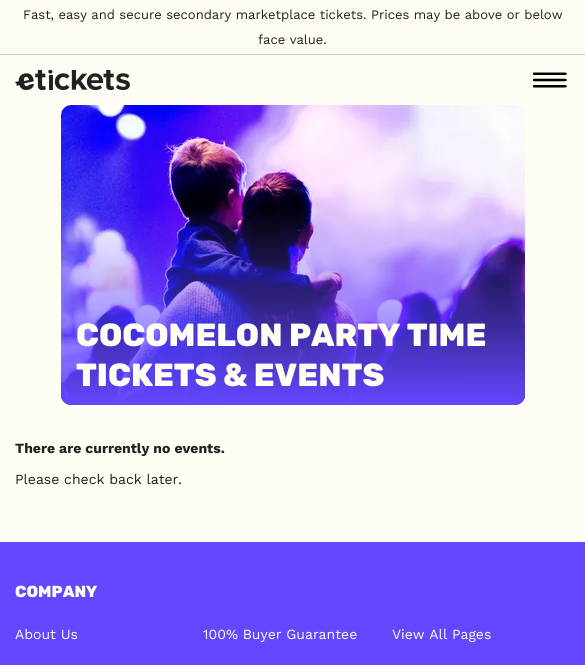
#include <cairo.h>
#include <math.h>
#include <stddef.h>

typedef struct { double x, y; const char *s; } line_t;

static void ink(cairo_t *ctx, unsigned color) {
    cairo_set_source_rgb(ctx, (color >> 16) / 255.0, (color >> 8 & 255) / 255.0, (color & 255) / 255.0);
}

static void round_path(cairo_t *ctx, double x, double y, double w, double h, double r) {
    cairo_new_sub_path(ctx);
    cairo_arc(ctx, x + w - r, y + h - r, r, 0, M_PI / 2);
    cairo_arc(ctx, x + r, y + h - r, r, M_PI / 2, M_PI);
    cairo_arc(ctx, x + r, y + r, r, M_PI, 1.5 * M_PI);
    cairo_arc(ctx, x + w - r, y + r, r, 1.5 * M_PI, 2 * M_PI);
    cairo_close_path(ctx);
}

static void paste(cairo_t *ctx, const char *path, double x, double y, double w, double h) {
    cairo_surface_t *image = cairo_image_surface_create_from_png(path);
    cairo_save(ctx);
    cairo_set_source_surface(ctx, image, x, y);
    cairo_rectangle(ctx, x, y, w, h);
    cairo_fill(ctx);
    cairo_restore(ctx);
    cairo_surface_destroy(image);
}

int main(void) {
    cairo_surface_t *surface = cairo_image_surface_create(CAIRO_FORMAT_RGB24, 585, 665);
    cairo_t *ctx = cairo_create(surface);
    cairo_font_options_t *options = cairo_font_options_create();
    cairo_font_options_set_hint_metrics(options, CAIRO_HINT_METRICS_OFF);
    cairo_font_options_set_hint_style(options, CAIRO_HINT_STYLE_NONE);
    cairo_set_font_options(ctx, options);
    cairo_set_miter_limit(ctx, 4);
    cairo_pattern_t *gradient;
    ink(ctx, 0xFFFCF3);
    cairo_paint(ctx);
    ink(ctx, 0xCECBC4);
    cairo_rectangle(ctx, 0, 54, 585, 1);
    cairo_fill(ctx);
    cairo_select_font_face(ctx, "Work Sans", CAIRO_FONT_SLANT_NORMAL, CAIRO_FONT_WEIGHT_NORMAL);
    cairo_set_font_size(ctx, 13);
    ink(ctx, 0x231F20);
    cairo_move_to(ctx, 23, 19);
    cairo_show_text(ctx, "Fast, easy and secure secondary marketplace tickets. Prices may be above or below");
    cairo_move_to(ctx, 258, 44);
    cairo_show_text(ctx, "face value.");
    paste(ctx, "media/1.png", 15, 70, 115, 20);
    paste(ctx, "media/2.png", 533, 72, 34, 16);
    paste(ctx, "media/3.png", 61, 105, 464, 300);
    gradient = cairo_pattern_create_linear(293, 105, 293, 405);
    cairo_pattern_add_color_stop_rgba(gradient, 0.34, 0.384, 0.278, 1, 0);
    cairo_pattern_add_color_stop_rgba(gradient, 1, 0.384, 0.278, 1, 1);
    cairo_set_source(ctx, gradient);
    cairo_pattern_destroy(gradient);
    round_path(ctx, 61, 105, 464, 300, 10);
    cairo_fill(ctx);
    cairo_select_font_face(ctx, "Rubik ExtraBold", CAIRO_FONT_SLANT_NORMAL, CAIRO_FONT_WEIGHT_NORMAL);
    cairo_set_font_size(ctx, 32);
    ink(ctx, 0xFFFDF4);
    cairo_move_to(ctx, 76, 346);
    cairo_show_text(ctx, "COCOMELON PARTY TIME");
    cairo_move_to(ctx, 76, 386);
    cairo_show_text(ctx, "TICKETS & EVENTS");
    cairo_select_font_face(ctx, "Work Sans", CAIRO_FONT_SLANT_NORMAL, CAIRO_FONT_WEIGHT_BOLD);
    cairo_set_font_size(ctx, 14);
    ink(ctx, 0x231F20);
    cairo_move_to(ctx, 15, 453);
    cairo_show_text(ctx, "There are currently no events.");
    cairo_select_font_face(ctx, "Work Sans", CAIRO_FONT_SLANT_NORMAL, CAIRO_FONT_WEIGHT_NORMAL);
    cairo_move_to(ctx, 15, 484);
    cairo_show_text(ctx, "Please check back later.");
    ink(ctx, 0x6247FF);
    cairo_rectangle(ctx, 0, 542, 585, 123);
    cairo_fill(ctx);
    cairo_select_font_face(ctx, "Rubik ExtraBold", CAIRO_FONT_SLANT_NORMAL, CAIRO_FONT_WEIGHT_NORMAL);
    cairo_set_font_size(ctx, 16);
    ink(ctx, 0xFFFDF4);
    cairo_move_to(ctx, 15, 597);
    cairo_show_text(ctx, "COMPANY");
    cairo_select_font_face(ctx, "Work Sans", CAIRO_FONT_SLANT_NORMAL, CAIRO_FONT_WEIGHT_NORMAL);
    cairo_set_font_size(ctx, 14);
    {
        static const line_t items[] = {
            {15, 639, "About Us"},
            {203, 639, "100% Buyer Guarantee"},
            {392, 639, "View All Pages"},
        };
        for (size_t i = 0; i < sizeof items / sizeof *items; i++) {
            cairo_move_to(ctx, items[i].x, items[i].y);
            cairo_show_text(ctx, items[i].s);
        }
    }
    cairo_surface_write_to_png(surface, "image.png");
    cairo_font_options_destroy(options);
    cairo_destroy(ctx);
    cairo_surface_destroy(surface);
    return 0;
}
